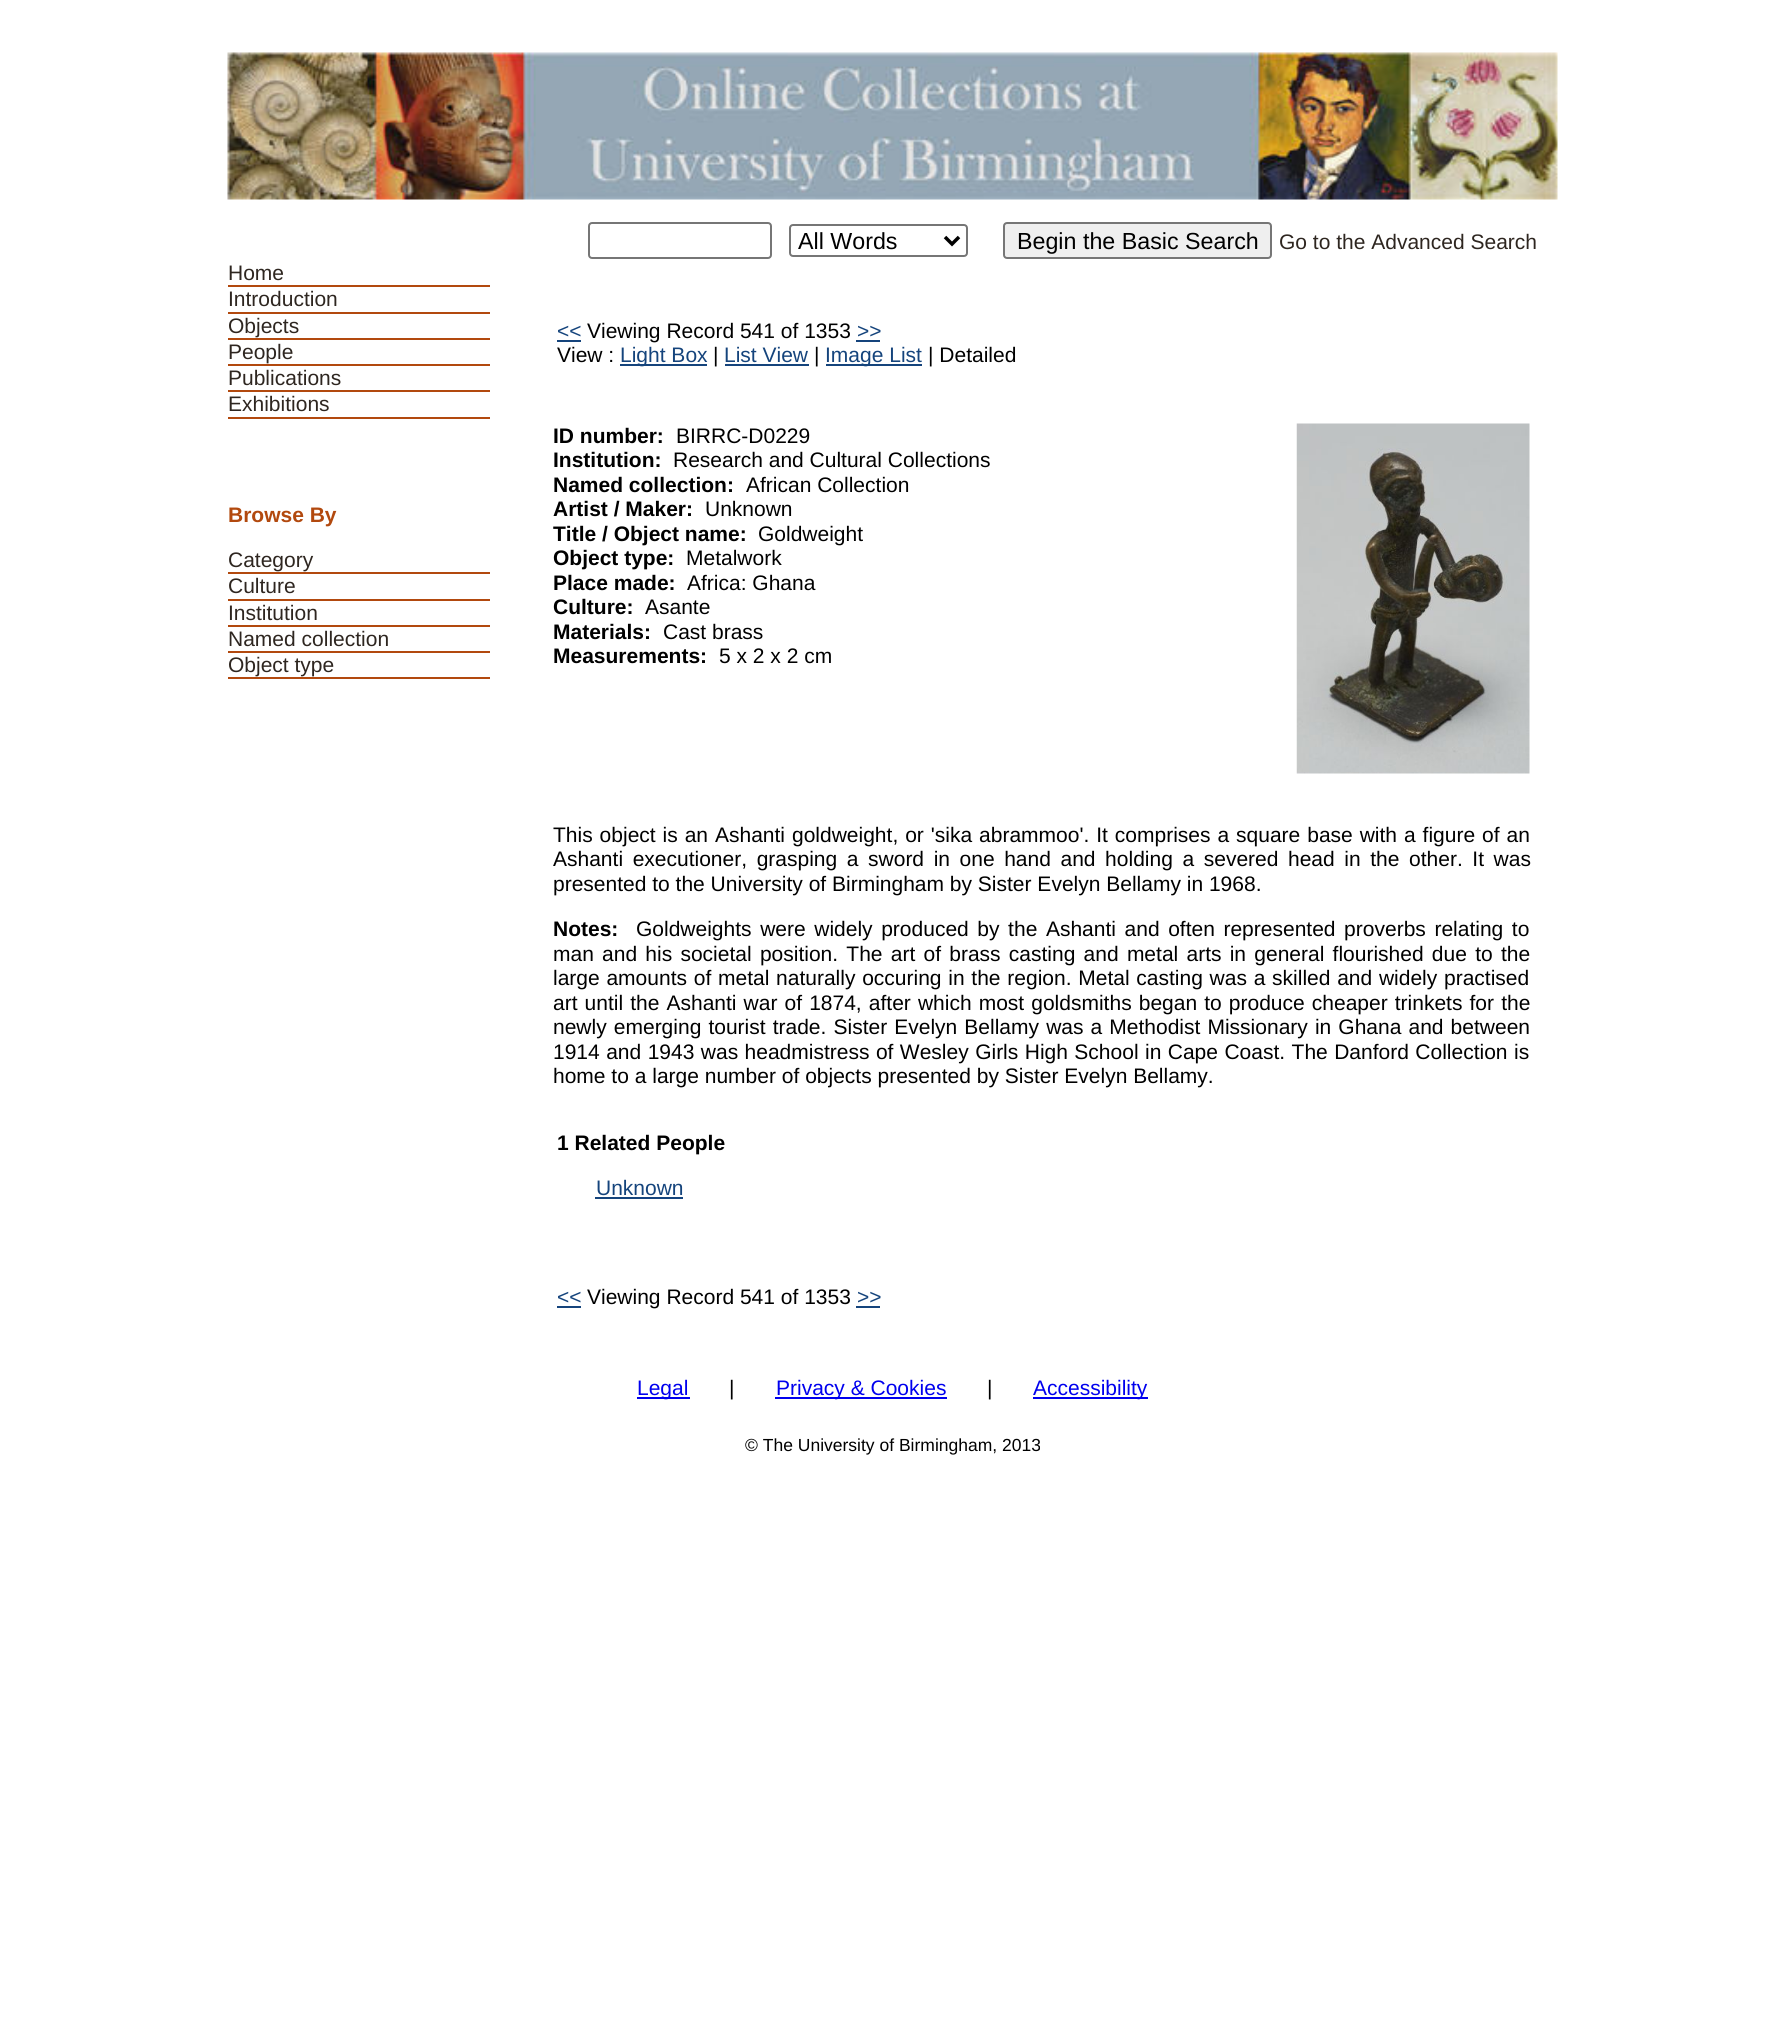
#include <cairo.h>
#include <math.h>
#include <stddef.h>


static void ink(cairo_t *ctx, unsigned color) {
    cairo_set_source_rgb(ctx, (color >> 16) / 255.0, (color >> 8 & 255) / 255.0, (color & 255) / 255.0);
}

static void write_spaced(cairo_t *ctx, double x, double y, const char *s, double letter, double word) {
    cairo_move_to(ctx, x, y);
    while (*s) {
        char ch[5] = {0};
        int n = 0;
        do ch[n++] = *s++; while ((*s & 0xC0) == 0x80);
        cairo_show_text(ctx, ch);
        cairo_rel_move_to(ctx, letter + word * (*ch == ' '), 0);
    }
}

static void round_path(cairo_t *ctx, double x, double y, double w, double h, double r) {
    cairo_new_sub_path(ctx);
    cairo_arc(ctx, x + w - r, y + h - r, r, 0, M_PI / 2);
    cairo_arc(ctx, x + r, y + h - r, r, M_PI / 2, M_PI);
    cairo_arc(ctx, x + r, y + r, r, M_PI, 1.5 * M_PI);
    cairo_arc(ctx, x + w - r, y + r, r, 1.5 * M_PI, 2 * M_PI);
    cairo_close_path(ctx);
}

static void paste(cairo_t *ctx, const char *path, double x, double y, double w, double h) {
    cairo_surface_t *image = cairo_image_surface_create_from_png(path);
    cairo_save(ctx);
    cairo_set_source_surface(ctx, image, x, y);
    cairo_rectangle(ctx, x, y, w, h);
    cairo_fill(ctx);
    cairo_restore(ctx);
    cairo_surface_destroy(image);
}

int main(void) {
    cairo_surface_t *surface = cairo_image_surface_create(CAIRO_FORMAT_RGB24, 1784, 2025);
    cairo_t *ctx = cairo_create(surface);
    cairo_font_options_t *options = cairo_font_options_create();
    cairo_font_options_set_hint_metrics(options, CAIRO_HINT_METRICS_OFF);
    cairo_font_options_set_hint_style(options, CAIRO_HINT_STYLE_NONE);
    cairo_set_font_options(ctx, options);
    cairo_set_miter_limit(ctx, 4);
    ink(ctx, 0xFFFFFF);
    cairo_paint(ctx);
    paste(ctx, "media/1.png", 227, 52, 1331, 148);
    round_path(ctx, 589, 223, 182, 35, 3);
    ink(ctx, 0x767676);
    cairo_stroke(ctx);
    round_path(ctx, 790, 225, 177, 31, 3);
    cairo_stroke(ctx);
    cairo_new_path(ctx);
    cairo_move_to(ctx, 945, 237);
    cairo_line_to(ctx, 952, 244);
    cairo_line_to(ctx, 959, 237);
    ink(ctx, 0x000000);
    cairo_set_line_width(ctx, 3.5);
    cairo_stroke(ctx);
    cairo_select_font_face(ctx, "Liberation Sans", CAIRO_FONT_SLANT_NORMAL, CAIRO_FONT_WEIGHT_NORMAL);
    cairo_set_font_size(ctx, 23.25);
    cairo_move_to(ctx, 798, 249);
    cairo_show_text(ctx, "All Words");
    ink(ctx, 0xEFEFEF);
    round_path(ctx, 1004, 223, 267, 35, 3);
    cairo_fill_preserve(ctx);
    ink(ctx, 0x767676);
    cairo_set_line_width(ctx, 2);
    cairo_stroke(ctx);
    ink(ctx, 0x000000);
    cairo_move_to(ctx, 1017, 249);
    cairo_show_text(ctx, "Begin the Basic Search");
    cairo_set_font_size(ctx, 21);
    ink(ctx, 0x2E2620);
    cairo_move_to(ctx, 1279, 249);
    cairo_show_text(ctx, "Go to the Advanced Search");
    ink(ctx, 0xB2490E);
    cairo_rectangle(ctx, 228, 285, 262, 2);
    cairo_fill(ctx);
    ink(ctx, 0x2E2620);
    cairo_move_to(ctx, 228, 280);
    cairo_show_text(ctx, "Home");
    ink(ctx, 0xB2490E);
    cairo_rectangle(ctx, 228, 312, 262, 2);
    cairo_fill(ctx);
    ink(ctx, 0x2E2620);
    cairo_move_to(ctx, 228, 306);
    cairo_show_text(ctx, "Introduction");
    ink(ctx, 0xB2490E);
    cairo_rectangle(ctx, 228, 338, 262, 2);
    cairo_fill(ctx);
    ink(ctx, 0x2E2620);
    cairo_move_to(ctx, 228, 333);
    cairo_show_text(ctx, "Objects");
    ink(ctx, 0xB2490E);
    cairo_rectangle(ctx, 228, 364, 262, 2);
    cairo_fill(ctx);
    ink(ctx, 0x2E2620);
    cairo_move_to(ctx, 228, 359);
    cairo_show_text(ctx, "People");
    ink(ctx, 0xB2490E);
    cairo_rectangle(ctx, 228, 390, 262, 2);
    cairo_fill(ctx);
    ink(ctx, 0x2E2620);
    cairo_move_to(ctx, 228, 385);
    cairo_show_text(ctx, "Publications");
    ink(ctx, 0xB2490E);
    cairo_rectangle(ctx, 228, 417, 262, 2);
    cairo_fill(ctx);
    ink(ctx, 0x2E2620);
    cairo_move_to(ctx, 228, 411);
    cairo_show_text(ctx, "Exhibitions");
    ink(ctx, 0x15447C);
    cairo_move_to(ctx, 557, 338);
    cairo_show_text(ctx, "<<");
    cairo_rectangle(ctx, 557, 340, 24, 2);
    cairo_fill(ctx);
    ink(ctx, 0x000000);
    cairo_move_to(ctx, 587, 338);
    cairo_show_text(ctx, "Viewing Record 541 of 1353");
    ink(ctx, 0x15447C);
    cairo_move_to(ctx, 857, 338);
    cairo_show_text(ctx, ">>");
    cairo_rectangle(ctx, 856, 340, 24, 2);
    cairo_fill(ctx);
    ink(ctx, 0x000000);
    cairo_move_to(ctx, 557, 362);
    cairo_show_text(ctx, "View :");
    ink(ctx, 0x15447C);
    cairo_rectangle(ctx, 620, 364, 87, 2);
    cairo_fill(ctx);
    cairo_move_to(ctx, 620, 362);
    cairo_show_text(ctx, "Light Box");
    ink(ctx, 0x000000);
    cairo_move_to(ctx, 713, 362);
    cairo_show_text(ctx, "|");
    ink(ctx, 0x15447C);
    cairo_move_to(ctx, 724, 362);
    cairo_show_text(ctx, "List View");
    cairo_rectangle(ctx, 725, 364, 84, 2);
    cairo_fill(ctx);
    ink(ctx, 0x000000);
    cairo_move_to(ctx, 814, 362);
    cairo_show_text(ctx, "|");
    ink(ctx, 0x15447C);
    cairo_rectangle(ctx, 826, 364, 96, 2);
    cairo_fill(ctx);
    cairo_move_to(ctx, 825, 362);
    cairo_show_text(ctx, "Image List");
    ink(ctx, 0x000000);
    cairo_move_to(ctx, 928, 362);
    cairo_show_text(ctx, "| Detailed");
    cairo_select_font_face(ctx, "Liberation Sans", CAIRO_FONT_SLANT_NORMAL, CAIRO_FONT_WEIGHT_BOLD);
    cairo_move_to(ctx, 553, 443);
    cairo_show_text(ctx, "ID number:");
    cairo_select_font_face(ctx, "Liberation Sans", CAIRO_FONT_SLANT_NORMAL, CAIRO_FONT_WEIGHT_NORMAL);
    cairo_move_to(ctx, 676, 443);
    cairo_show_text(ctx, "BIRRC-D0229");
    cairo_select_font_face(ctx, "Liberation Sans", CAIRO_FONT_SLANT_NORMAL, CAIRO_FONT_WEIGHT_BOLD);
    cairo_move_to(ctx, 553, 467);
    cairo_show_text(ctx, "Institution:");
    cairo_select_font_face(ctx, "Liberation Sans", CAIRO_FONT_SLANT_NORMAL, CAIRO_FONT_WEIGHT_NORMAL);
    cairo_move_to(ctx, 673, 467);
    cairo_show_text(ctx, "Research and Cultural Collections");
    cairo_select_font_face(ctx, "Liberation Sans", CAIRO_FONT_SLANT_NORMAL, CAIRO_FONT_WEIGHT_BOLD);
    cairo_move_to(ctx, 553, 492);
    cairo_show_text(ctx, "Named collection:");
    cairo_select_font_face(ctx, "Liberation Sans", CAIRO_FONT_SLANT_NORMAL, CAIRO_FONT_WEIGHT_NORMAL);
    cairo_move_to(ctx, 746, 492);
    cairo_show_text(ctx, "African Collection");
    cairo_select_font_face(ctx, "Liberation Sans", CAIRO_FONT_SLANT_NORMAL, CAIRO_FONT_WEIGHT_BOLD);
    cairo_move_to(ctx, 553, 516);
    cairo_show_text(ctx, "Artist / Maker:");
    cairo_select_font_face(ctx, "Liberation Sans", CAIRO_FONT_SLANT_NORMAL, CAIRO_FONT_WEIGHT_NORMAL);
    cairo_move_to(ctx, 705, 516);
    cairo_show_text(ctx, "Unknown");
    cairo_select_font_face(ctx, "Liberation Sans", CAIRO_FONT_SLANT_NORMAL, CAIRO_FONT_WEIGHT_BOLD);
    cairo_move_to(ctx, 553, 541);
    cairo_show_text(ctx, "Title / Object name:");
    cairo_select_font_face(ctx, "Liberation Sans", CAIRO_FONT_SLANT_NORMAL, CAIRO_FONT_WEIGHT_NORMAL);
    cairo_move_to(ctx, 758, 541);
    cairo_show_text(ctx, "Goldweight");
    cairo_select_font_face(ctx, "Liberation Sans", CAIRO_FONT_SLANT_NORMAL, CAIRO_FONT_WEIGHT_BOLD);
    cairo_move_to(ctx, 553, 565);
    cairo_show_text(ctx, "Object type:");
    cairo_select_font_face(ctx, "Liberation Sans", CAIRO_FONT_SLANT_NORMAL, CAIRO_FONT_WEIGHT_NORMAL);
    cairo_move_to(ctx, 686, 565);
    cairo_show_text(ctx, "Metalwork");
    cairo_select_font_face(ctx, "Liberation Sans", CAIRO_FONT_SLANT_NORMAL, CAIRO_FONT_WEIGHT_BOLD);
    cairo_move_to(ctx, 553, 590);
    cairo_show_text(ctx, "Place made:");
    cairo_select_font_face(ctx, "Liberation Sans", CAIRO_FONT_SLANT_NORMAL, CAIRO_FONT_WEIGHT_NORMAL);
    cairo_move_to(ctx, 687, 590);
    cairo_show_text(ctx, "Africa: Ghana");
    cairo_select_font_face(ctx, "Liberation Sans", CAIRO_FONT_SLANT_NORMAL, CAIRO_FONT_WEIGHT_BOLD);
    cairo_move_to(ctx, 553, 614);
    cairo_show_text(ctx, "Culture:");
    cairo_select_font_face(ctx, "Liberation Sans", CAIRO_FONT_SLANT_NORMAL, CAIRO_FONT_WEIGHT_NORMAL);
    cairo_move_to(ctx, 645, 614);
    cairo_show_text(ctx, "Asante");
    cairo_select_font_face(ctx, "Liberation Sans", CAIRO_FONT_SLANT_NORMAL, CAIRO_FONT_WEIGHT_BOLD);
    cairo_move_to(ctx, 553, 639);
    cairo_show_text(ctx, "Materials:");
    cairo_select_font_face(ctx, "Liberation Sans", CAIRO_FONT_SLANT_NORMAL, CAIRO_FONT_WEIGHT_NORMAL);
    cairo_move_to(ctx, 663, 639);
    cairo_show_text(ctx, "Cast brass");
    cairo_select_font_face(ctx, "Liberation Sans", CAIRO_FONT_SLANT_NORMAL, CAIRO_FONT_WEIGHT_BOLD);
    cairo_move_to(ctx, 553, 663);
    cairo_show_text(ctx, "Measurements:");
    cairo_select_font_face(ctx, "Liberation Sans", CAIRO_FONT_SLANT_NORMAL, CAIRO_FONT_WEIGHT_NORMAL);
    cairo_move_to(ctx, 719, 663);
    cairo_show_text(ctx, "5 x 2 x 2 cm");
    paste(ctx, "media/2.png", 1296, 423, 234, 351);
    write_spaced(ctx, 553, 842, "This object is an Ashanti goldweight, or 'sika abrammoo'. It comprises a square base with a figure of an", 0, 1.1);
    write_spaced(ctx, 553, 866, "Ashanti executioner, grasping a sword in one hand and holding a severed head in the other. It was", 0, 3.75);
    cairo_move_to(ctx, 553, 891);
    cairo_show_text(ctx, "presented to the University of Birmingham by Sister Evelyn Bellamy in 1968.");
    cairo_select_font_face(ctx, "Liberation Sans", CAIRO_FONT_SLANT_NORMAL, CAIRO_FONT_WEIGHT_BOLD);
    cairo_move_to(ctx, 553, 936);
    cairo_show_text(ctx, "Notes:");
    cairo_select_font_face(ctx, "Liberation Sans", CAIRO_FONT_SLANT_NORMAL, CAIRO_FONT_WEIGHT_NORMAL);
    write_spaced(ctx, 636, 936, "Goldweights were widely produced by the Ashanti and often represented proverbs relating to", 0, 2.75);
    write_spaced(ctx, 553, 961, "man and his societal position. The art of brass casting and metal arts in general flourished due to the", 0, 2.4);
    write_spaced(ctx, 553, 985, "large amounts of metal naturally occuring in the region. Metal casting was a skilled and widely practised", 0, 0.9);
    write_spaced(ctx, 553, 1010, "art until the Ashanti war of 1874, after which most goldsmiths began to produce cheaper trinkets for the", 0, 1.25);
    write_spaced(ctx, 553, 1034, "newly emerging tourist trade. Sister Evelyn Bellamy was a Methodist Missionary in Ghana and between", 0, 1.25);
    write_spaced(ctx, 553, 1059, "1914 and 1943 was headmistress of Wesley Girls High School in Cape Coast. The Danford Collection is", 0, 0.6);
    cairo_move_to(ctx, 553, 1083);
    cairo_show_text(ctx, "home to a large number of objects presented by Sister Evelyn Bellamy.");
    cairo_select_font_face(ctx, "Liberation Sans", CAIRO_FONT_SLANT_NORMAL, CAIRO_FONT_WEIGHT_BOLD);
    cairo_move_to(ctx, 557, 1150);
    cairo_show_text(ctx, "1 Related People");
    cairo_select_font_face(ctx, "Liberation Sans", CAIRO_FONT_SLANT_NORMAL, CAIRO_FONT_WEIGHT_NORMAL);
    ink(ctx, 0x15447C);
    cairo_move_to(ctx, 596, 1195);
    cairo_show_text(ctx, "Unknown");
    cairo_rectangle(ctx, 595, 1197, 88, 2);
    cairo_fill(ctx);
    cairo_move_to(ctx, 557, 1304);
    cairo_show_text(ctx, "<<");
    cairo_rectangle(ctx, 557, 1306, 24, 2);
    cairo_fill(ctx);
    ink(ctx, 0x000000);
    cairo_move_to(ctx, 587, 1304);
    cairo_show_text(ctx, "Viewing Record 541 of 1353");
    ink(ctx, 0x15447C);
    cairo_move_to(ctx, 857, 1304);
    cairo_show_text(ctx, ">>");
    cairo_rectangle(ctx, 856, 1306, 24, 2);
    cairo_fill(ctx);
    cairo_select_font_face(ctx, "Liberation Sans", CAIRO_FONT_SLANT_NORMAL, CAIRO_FONT_WEIGHT_BOLD);
    ink(ctx, 0xB2490E);
    cairo_move_to(ctx, 228, 522);
    cairo_show_text(ctx, "Browse By");
    cairo_rectangle(ctx, 228, 572, 262, 2);
    cairo_fill(ctx);
    cairo_select_font_face(ctx, "Liberation Sans", CAIRO_FONT_SLANT_NORMAL, CAIRO_FONT_WEIGHT_NORMAL);
    ink(ctx, 0x2E2620);
    cairo_move_to(ctx, 228, 567);
    cairo_show_text(ctx, "Category");
    ink(ctx, 0xB2490E);
    cairo_rectangle(ctx, 228, 599, 262, 2);
    cairo_fill(ctx);
    ink(ctx, 0x2E2620);
    cairo_move_to(ctx, 228, 593);
    cairo_show_text(ctx, "Culture");
    ink(ctx, 0xB2490E);
    cairo_rectangle(ctx, 228, 625, 262, 2);
    cairo_fill(ctx);
    ink(ctx, 0x2E2620);
    cairo_move_to(ctx, 228, 620);
    cairo_show_text(ctx, "Institution");
    ink(ctx, 0xB2490E);
    cairo_rectangle(ctx, 228, 651, 262, 2);
    cairo_fill(ctx);
    ink(ctx, 0x2E2620);
    cairo_move_to(ctx, 228, 646);
    cairo_show_text(ctx, "Named collection");
    ink(ctx, 0xB2490E);
    cairo_rectangle(ctx, 228, 677, 262, 2);
    cairo_fill(ctx);
    ink(ctx, 0x2E2620);
    cairo_move_to(ctx, 228, 672);
    cairo_show_text(ctx, "Object type");
    ink(ctx, 0x0000EE);
    cairo_rectangle(ctx, 637, 1397, 53, 2);
    cairo_fill(ctx);
    cairo_move_to(ctx, 637, 1395);
    cairo_show_text(ctx, "Legal");
    ink(ctx, 0x000000);
    cairo_move_to(ctx, 729, 1395);
    cairo_show_text(ctx, "|");
    ink(ctx, 0x0000EE);
    cairo_rectangle(ctx, 775, 1397, 172, 2);
    cairo_fill(ctx);
    cairo_move_to(ctx, 776, 1395);
    cairo_show_text(ctx, "Privacy & Cookies");
    ink(ctx, 0x000000);
    cairo_move_to(ctx, 987, 1395);
    cairo_show_text(ctx, "|");
    ink(ctx, 0x0000EE);
    cairo_rectangle(ctx, 1033, 1397, 115, 2);
    cairo_fill(ctx);
    cairo_move_to(ctx, 1033, 1395);
    cairo_show_text(ctx, "Accessibility");
    cairo_set_font_size(ctx, 17.5);
    ink(ctx, 0x000000);
    cairo_move_to(ctx, 745, 1451);
    cairo_show_text(ctx, "© The University of Birmingham, 2013");
    cairo_surface_write_to_png(surface, "image.png");
    cairo_font_options_destroy(options);
    cairo_destroy(ctx);
    cairo_surface_destroy(surface);
    return 0;
}
